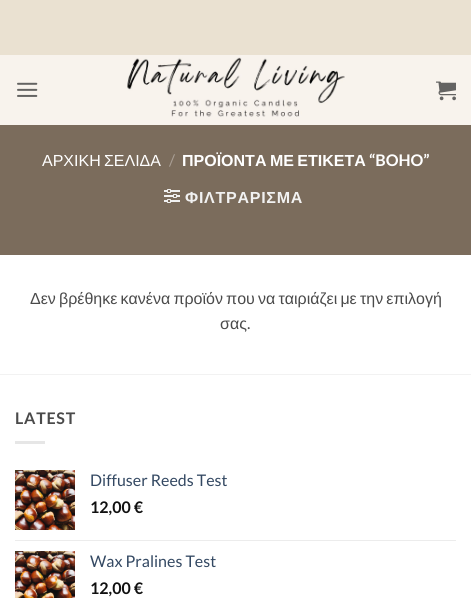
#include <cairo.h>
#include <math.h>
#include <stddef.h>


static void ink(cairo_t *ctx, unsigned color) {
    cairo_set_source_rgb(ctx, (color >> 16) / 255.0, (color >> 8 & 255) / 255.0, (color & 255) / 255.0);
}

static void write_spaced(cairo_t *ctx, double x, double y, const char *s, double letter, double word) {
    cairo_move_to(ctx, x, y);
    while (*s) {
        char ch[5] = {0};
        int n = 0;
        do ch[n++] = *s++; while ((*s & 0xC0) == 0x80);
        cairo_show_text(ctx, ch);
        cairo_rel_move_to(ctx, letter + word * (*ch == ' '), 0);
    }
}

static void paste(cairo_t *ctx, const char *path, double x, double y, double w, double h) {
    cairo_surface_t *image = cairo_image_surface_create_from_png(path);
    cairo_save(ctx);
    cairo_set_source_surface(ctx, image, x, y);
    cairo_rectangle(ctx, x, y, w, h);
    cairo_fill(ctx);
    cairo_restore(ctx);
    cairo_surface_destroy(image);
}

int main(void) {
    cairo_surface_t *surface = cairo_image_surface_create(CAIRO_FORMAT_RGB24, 471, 598);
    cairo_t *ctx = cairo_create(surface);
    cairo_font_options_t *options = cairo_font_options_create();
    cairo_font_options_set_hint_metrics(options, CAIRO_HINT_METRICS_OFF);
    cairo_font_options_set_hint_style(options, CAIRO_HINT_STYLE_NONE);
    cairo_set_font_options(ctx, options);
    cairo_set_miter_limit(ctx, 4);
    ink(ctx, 0xFFFFFF);
    cairo_paint(ctx);
    ink(ctx, 0xEAE1D1);
    cairo_rectangle(ctx, 0, 0, 471, 55);
    cairo_fill(ctx);
    ink(ctx, 0xF8F3ED);
    cairo_rectangle(ctx, 0, 55, 471, 70);
    cairo_fill(ctx);
    paste(ctx, "media/1.png", 17, 82, 21, 15);
    paste(ctx, "media/2.png", 127, 57, 218, 60);
    paste(ctx, "media/3.png", 436, 81, 20, 20);
    ink(ctx, 0x7B6C5C);
    cairo_rectangle(ctx, 0, 125, 471, 130);
    cairo_fill(ctx);
    cairo_select_font_face(ctx, "Liberation Sans", CAIRO_FONT_SLANT_NORMAL, CAIRO_FONT_WEIGHT_NORMAL);
    cairo_set_font_size(ctx, 16);
    ink(ctx, 0xFFFFFF);
    write_spaced(ctx, 42, 166, "ΑΡΧΙΚΗ ΣΕΛΙΔΑ", 0, -1.25);
    cairo_select_font_face(ctx, "Lato", CAIRO_FONT_SLANT_NORMAL, CAIRO_FONT_WEIGHT_NORMAL);
    ink(ctx, 0xA99F95);
    cairo_move_to(ctx, 169, 166);
    cairo_show_text(ctx, "/");
    cairo_select_font_face(ctx, "Liberation Sans", CAIRO_FONT_SLANT_NORMAL, CAIRO_FONT_WEIGHT_BOLD);
    ink(ctx, 0xFFFFFF);
    write_spaced(ctx, 182, 166, "ΠΡΟΪΟΝΤΑ ΜΕ ΕΤΙΚΕΤΑ", 0, -1);
    cairo_select_font_face(ctx, "Lato", CAIRO_FONT_SLANT_NORMAL, CAIRO_FONT_WEIGHT_BOLD);
    cairo_move_to(ctx, 369, 166);
    cairo_show_text(ctx, "“BOHO”");
    paste(ctx, "media/4.png", 164, 189, 16, 14);
    cairo_select_font_face(ctx, "Liberation Sans", CAIRO_FONT_SLANT_NORMAL, CAIRO_FONT_WEIGHT_BOLD);
    ink(ctx, 0xF1F1F1);
    write_spaced(ctx, 185, 203, "ΦΙΛΤΡΑΡΙΣΜΑ", 0.75, 0);
    cairo_select_font_face(ctx, "Liberation Sans", CAIRO_FONT_SLANT_NORMAL, CAIRO_FONT_WEIGHT_NORMAL);
    ink(ctx, 0x4A4A4A);
    write_spaced(ctx, 30, 304, "Δεν βρέθηκε κανένα προϊόν που να ταιριάζει με την επιλογή", 0, -1.25);
    cairo_move_to(ctx, 220, 329);
    cairo_show_text(ctx, "σας");
    cairo_select_font_face(ctx, "Lato", CAIRO_FONT_SLANT_NORMAL, CAIRO_FONT_WEIGHT_NORMAL);
    cairo_move_to(ctx, 247, 329);
    cairo_show_text(ctx, ".");
    ink(ctx, 0xF2F2F2);
    cairo_rectangle(ctx, 0, 374, 471, 1);
    cairo_fill(ctx);
    cairo_select_font_face(ctx, "Lato", CAIRO_FONT_SLANT_NORMAL, CAIRO_FONT_WEIGHT_BOLD);
    ink(ctx, 0x4A4A4A);
    write_spaced(ctx, 15, 424, "LATEST", 0.75, 0);
    ink(ctx, 0xE6E6E6);
    cairo_rectangle(ctx, 15, 441, 30, 3);
    cairo_fill(ctx);
    paste(ctx, "media/5.png", 15, 470, 60, 60);
    cairo_select_font_face(ctx, "Lato", CAIRO_FONT_SLANT_NORMAL, CAIRO_FONT_WEIGHT_NORMAL);
    ink(ctx, 0x334862);
    cairo_move_to(ctx, 90, 486);
    cairo_show_text(ctx, "Diffuser Reeds Test");
    cairo_select_font_face(ctx, "Lato", CAIRO_FONT_SLANT_NORMAL, CAIRO_FONT_WEIGHT_BOLD);
    ink(ctx, 0x111111);
    cairo_move_to(ctx, 90, 513);
    cairo_show_text(ctx, "12,00 €");
    ink(ctx, 0xECECEC);
    cairo_rectangle(ctx, 15, 540, 441, 1);
    cairo_fill(ctx);
    paste(ctx, "media/6.png", 15, 551, 60, 47);
    cairo_select_font_face(ctx, "Lato", CAIRO_FONT_SLANT_NORMAL, CAIRO_FONT_WEIGHT_NORMAL);
    ink(ctx, 0x334862);
    cairo_move_to(ctx, 90, 567);
    cairo_show_text(ctx, "Wax Pralines Test");
    cairo_select_font_face(ctx, "Lato", CAIRO_FONT_SLANT_NORMAL, CAIRO_FONT_WEIGHT_BOLD);
    ink(ctx, 0x111111);
    cairo_move_to(ctx, 90, 594);
    cairo_show_text(ctx, "12,00 €");
    cairo_surface_write_to_png(surface, "image.png");
    cairo_font_options_destroy(options);
    cairo_destroy(ctx);
    cairo_surface_destroy(surface);
    return 0;
}
